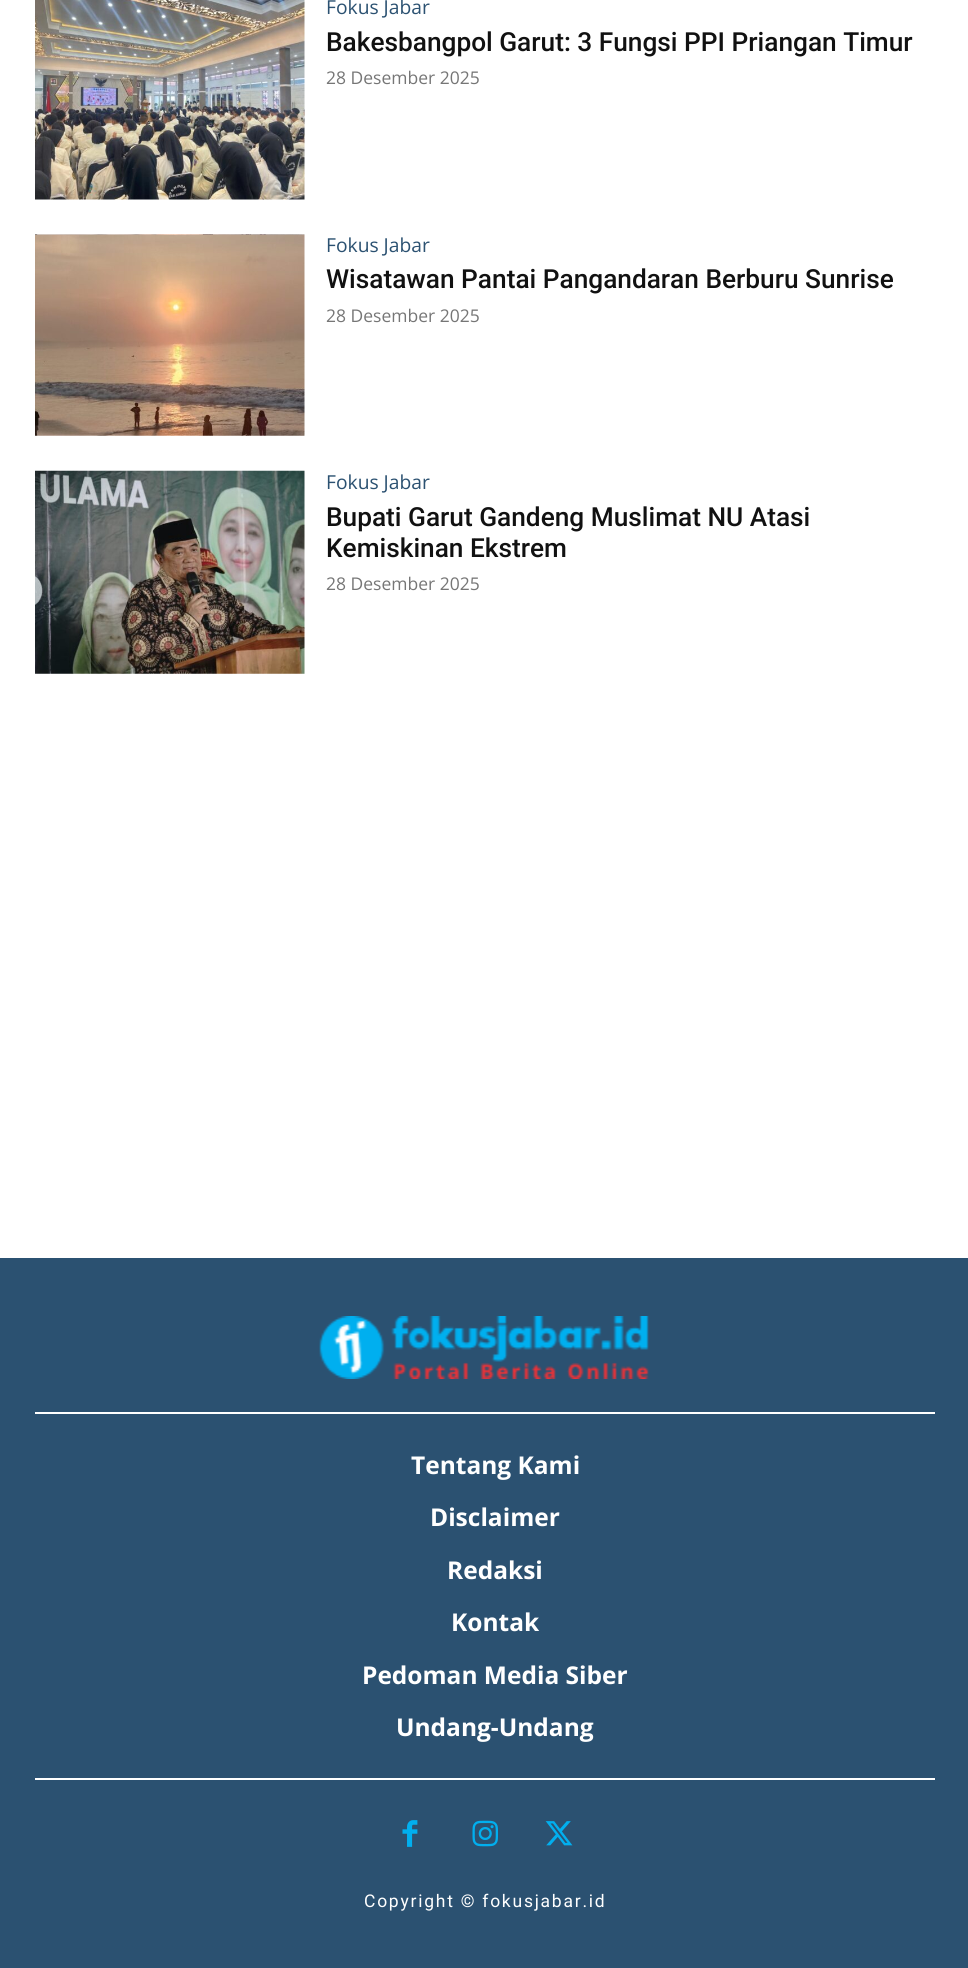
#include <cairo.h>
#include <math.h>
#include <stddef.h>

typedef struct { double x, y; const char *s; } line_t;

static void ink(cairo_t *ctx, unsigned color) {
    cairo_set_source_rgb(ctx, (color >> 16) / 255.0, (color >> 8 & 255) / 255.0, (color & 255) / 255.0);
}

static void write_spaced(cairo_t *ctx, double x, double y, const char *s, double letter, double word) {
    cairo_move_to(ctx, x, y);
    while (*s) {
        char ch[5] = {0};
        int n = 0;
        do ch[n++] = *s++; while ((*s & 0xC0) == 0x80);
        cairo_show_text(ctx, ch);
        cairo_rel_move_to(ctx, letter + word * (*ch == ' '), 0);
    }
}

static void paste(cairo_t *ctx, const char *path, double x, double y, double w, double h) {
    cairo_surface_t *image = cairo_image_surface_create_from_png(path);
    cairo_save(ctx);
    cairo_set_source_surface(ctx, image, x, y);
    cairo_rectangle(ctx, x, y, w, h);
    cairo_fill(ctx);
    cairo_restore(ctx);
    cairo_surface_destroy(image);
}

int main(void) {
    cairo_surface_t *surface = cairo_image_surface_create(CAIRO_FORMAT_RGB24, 968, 1968);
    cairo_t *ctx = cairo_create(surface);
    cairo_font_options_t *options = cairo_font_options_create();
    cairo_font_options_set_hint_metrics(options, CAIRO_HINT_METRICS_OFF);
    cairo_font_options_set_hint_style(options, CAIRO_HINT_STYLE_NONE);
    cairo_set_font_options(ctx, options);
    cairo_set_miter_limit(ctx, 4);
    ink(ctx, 0xFFFFFF);
    cairo_paint(ctx);
    paste(ctx, "media/1.png", 35, 0, 270, 200);
    cairo_select_font_face(ctx, "Open Sans", CAIRO_FONT_SLANT_NORMAL, CAIRO_FONT_WEIGHT_NORMAL);
    cairo_set_font_size(ctx, 19.25);
    ink(ctx, 0x2B5171);
    cairo_move_to(ctx, 326, 14);
    cairo_show_text(ctx, "Fokus Jabar");
    cairo_select_font_face(ctx, "Roboto Medium", CAIRO_FONT_SLANT_NORMAL, CAIRO_FONT_WEIGHT_NORMAL);
    cairo_set_font_size(ctx, 26.25);
    ink(ctx, 0x111111);
    cairo_move_to(ctx, 326, 51);
    cairo_show_text(ctx, "Bakesbangpol Garut: 3 Fungsi PPI Priangan Timur");
    cairo_select_font_face(ctx, "Open Sans", CAIRO_FONT_SLANT_NORMAL, CAIRO_FONT_WEIGHT_NORMAL);
    cairo_set_font_size(ctx, 17.5);
    ink(ctx, 0x767676);
    cairo_move_to(ctx, 326, 84);
    cairo_show_text(ctx, "28 Desember 2025");
    paste(ctx, "media/2.png", 35, 234, 270, 202);
    cairo_set_font_size(ctx, 19.25);
    ink(ctx, 0x2B5171);
    cairo_move_to(ctx, 326, 252);
    cairo_show_text(ctx, "Fokus Jabar");
    cairo_select_font_face(ctx, "Roboto Medium", CAIRO_FONT_SLANT_NORMAL, CAIRO_FONT_WEIGHT_NORMAL);
    cairo_set_font_size(ctx, 26.25);
    ink(ctx, 0x111111);
    cairo_move_to(ctx, 326, 288);
    cairo_show_text(ctx, "Wisatawan Pantai Pangandaran Berburu Sunrise");
    cairo_select_font_face(ctx, "Open Sans", CAIRO_FONT_SLANT_NORMAL, CAIRO_FONT_WEIGHT_NORMAL);
    cairo_set_font_size(ctx, 17.5);
    ink(ctx, 0x767676);
    cairo_move_to(ctx, 326, 322);
    cairo_show_text(ctx, "28 Desember 2025");
    paste(ctx, "media/3.png", 35, 470, 270, 204);
    cairo_set_font_size(ctx, 19.25);
    ink(ctx, 0x2B5171);
    cairo_move_to(ctx, 326, 489);
    cairo_show_text(ctx, "Fokus Jabar");
    cairo_select_font_face(ctx, "Roboto Medium", CAIRO_FONT_SLANT_NORMAL, CAIRO_FONT_WEIGHT_NORMAL);
    cairo_set_font_size(ctx, 26.25);
    ink(ctx, 0x111111);
    cairo_move_to(ctx, 326, 526);
    cairo_show_text(ctx, "Bupati Garut Gandeng Muslimat NU Atasi");
    cairo_move_to(ctx, 326, 557);
    cairo_show_text(ctx, "Kemiskinan Ekstrem");
    cairo_select_font_face(ctx, "Open Sans", CAIRO_FONT_SLANT_NORMAL, CAIRO_FONT_WEIGHT_NORMAL);
    cairo_set_font_size(ctx, 17.5);
    ink(ctx, 0x767676);
    cairo_move_to(ctx, 326, 590);
    cairo_show_text(ctx, "28 Desember 2025");
    ink(ctx, 0x2B5171);
    cairo_rectangle(ctx, 0, 1258, 968, 710);
    cairo_fill(ctx);
    paste(ctx, "media/4.png", 319, 1316, 330, 63);
    ink(ctx, 0xFFFFFF);
    cairo_rectangle(ctx, 35, 1412, 900, 2);
    cairo_fill(ctx);
    cairo_rectangle(ctx, 35, 1778, 900, 2);
    cairo_fill(ctx);
    cairo_select_font_face(ctx, "Open Sans", CAIRO_FONT_SLANT_NORMAL, CAIRO_FONT_WEIGHT_BOLD);
    cairo_set_font_size(ctx, 24.5);
    {
        static const line_t items[] = {
            {411, 1474, "Tentang Kami"},
            {430, 1526, "Disclaimer"},
            {447, 1579, "Redaksi"},
            {451, 1631, "Kontak"},
            {362, 1684, "Pedoman Media Siber"},
            {396, 1736, "Undang-Undang"},
        };
        for (size_t i = 0; i < sizeof items / sizeof *items; i++) {
            cairo_move_to(ctx, items[i].x, items[i].y);
            cairo_show_text(ctx, items[i].s);
        }
    }
    paste(ctx, "media/5.png", 402, 1820, 16, 27);
    paste(ctx, "media/6.png", 472, 1820, 26, 27);
    paste(ctx, "media/7.png", 545, 1821, 28, 25);
    cairo_select_font_face(ctx, "Roboto", CAIRO_FONT_SLANT_NORMAL, CAIRO_FONT_WEIGHT_NORMAL);
    cairo_set_font_size(ctx, 17.5);
    write_spaced(ctx, 364, 1907, "Copyright © fokusjabar.id", 1.75, 0);
    cairo_surface_write_to_png(surface, "image.png");
    cairo_font_options_destroy(options);
    cairo_destroy(ctx);
    cairo_surface_destroy(surface);
    return 0;
}
